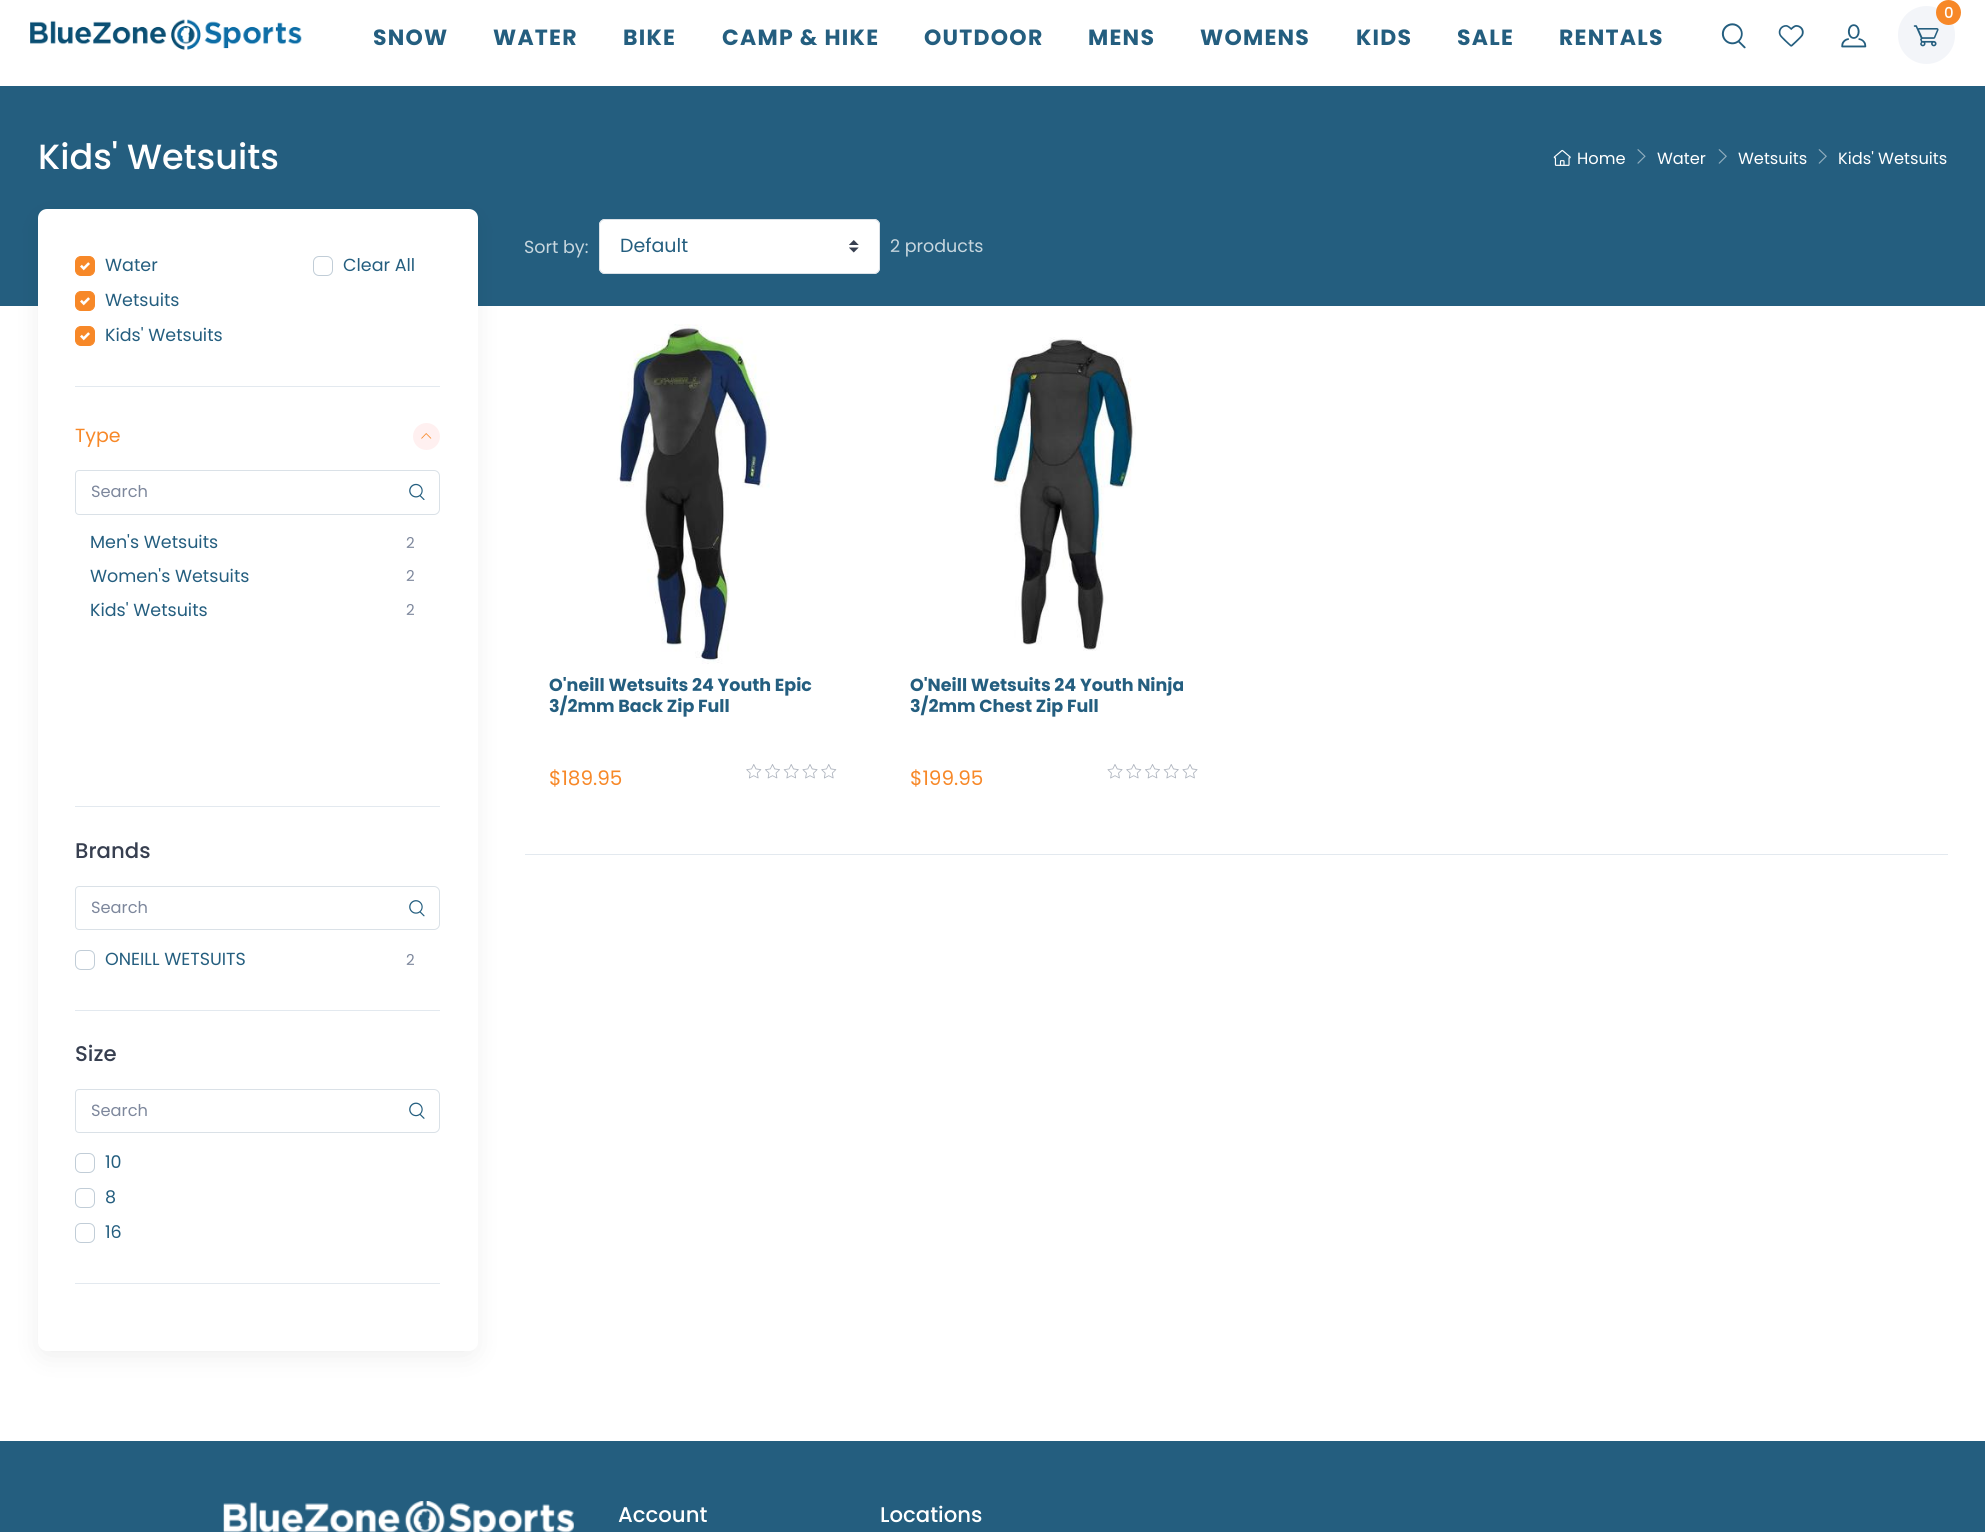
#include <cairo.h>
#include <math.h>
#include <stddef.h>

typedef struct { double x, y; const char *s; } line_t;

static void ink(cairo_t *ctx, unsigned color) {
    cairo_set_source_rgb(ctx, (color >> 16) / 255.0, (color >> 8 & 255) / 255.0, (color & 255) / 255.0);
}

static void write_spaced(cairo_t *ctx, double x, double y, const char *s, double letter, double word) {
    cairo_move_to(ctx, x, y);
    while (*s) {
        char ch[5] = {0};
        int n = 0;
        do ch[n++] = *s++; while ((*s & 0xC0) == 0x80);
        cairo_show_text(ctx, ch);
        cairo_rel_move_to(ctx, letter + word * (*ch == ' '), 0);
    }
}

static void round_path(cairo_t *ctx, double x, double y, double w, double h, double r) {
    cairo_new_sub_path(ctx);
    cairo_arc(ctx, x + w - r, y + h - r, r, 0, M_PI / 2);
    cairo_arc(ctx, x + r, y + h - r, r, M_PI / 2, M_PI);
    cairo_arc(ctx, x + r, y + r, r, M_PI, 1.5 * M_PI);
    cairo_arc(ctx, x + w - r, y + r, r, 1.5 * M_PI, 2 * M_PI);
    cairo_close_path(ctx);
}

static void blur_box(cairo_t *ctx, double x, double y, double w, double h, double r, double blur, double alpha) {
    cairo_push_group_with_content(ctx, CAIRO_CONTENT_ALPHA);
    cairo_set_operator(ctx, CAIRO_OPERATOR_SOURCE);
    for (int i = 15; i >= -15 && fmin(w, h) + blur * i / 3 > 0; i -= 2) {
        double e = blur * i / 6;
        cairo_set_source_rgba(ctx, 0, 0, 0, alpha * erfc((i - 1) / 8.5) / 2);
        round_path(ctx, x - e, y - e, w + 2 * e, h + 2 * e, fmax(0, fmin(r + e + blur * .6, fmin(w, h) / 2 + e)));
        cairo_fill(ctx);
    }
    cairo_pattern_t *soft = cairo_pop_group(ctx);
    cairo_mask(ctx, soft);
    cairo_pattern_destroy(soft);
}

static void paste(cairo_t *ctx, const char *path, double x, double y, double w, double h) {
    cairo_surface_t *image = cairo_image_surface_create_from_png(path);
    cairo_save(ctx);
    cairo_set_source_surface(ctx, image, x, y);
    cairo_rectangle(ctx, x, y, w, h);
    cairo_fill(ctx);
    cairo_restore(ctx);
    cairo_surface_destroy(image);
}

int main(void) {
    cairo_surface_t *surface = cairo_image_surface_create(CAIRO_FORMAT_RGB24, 1985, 1532);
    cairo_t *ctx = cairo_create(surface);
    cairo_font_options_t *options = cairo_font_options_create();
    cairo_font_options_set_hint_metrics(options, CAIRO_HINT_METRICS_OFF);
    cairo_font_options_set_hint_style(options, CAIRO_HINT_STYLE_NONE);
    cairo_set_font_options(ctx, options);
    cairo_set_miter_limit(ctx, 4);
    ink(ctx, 0xFFFFFF);
    cairo_paint(ctx);
    ink(ctx, 0xF3F5F9);
    round_path(ctx, 1898, 6, 57, 58, 28.5);
    cairo_fill(ctx);
    ink(ctx, 0xF78828);
    cairo_arc(ctx, 1948.5, 12.5, 12.5, 0, 2 * M_PI);
    cairo_fill(ctx);
    cairo_select_font_face(ctx, "Poppins Medium", CAIRO_FONT_SLANT_NORMAL, CAIRO_FONT_WEIGHT_NORMAL);
    cairo_set_font_size(ctx, 15);
    ink(ctx, 0xFFFFFF);
    cairo_move_to(ctx, 1944, 18);
    cairo_show_text(ctx, "0");
    paste(ctx, "media/1.png", 1913, 25, 26, 22);
    paste(ctx, "media/2.png", 1721, 23, 25, 26);
    paste(ctx, "media/3.png", 1778, 25, 26, 22);
    paste(ctx, "media/4.png", 1841, 24, 26, 24);
    paste(ctx, "media/5.png", 30, 19, 272, 31);
    cairo_select_font_face(ctx, "Poppins", CAIRO_FONT_SLANT_NORMAL, CAIRO_FONT_WEIGHT_BOLD);
    cairo_set_font_size(ctx, 22);
    ink(ctx, 0x245E7F);
    {
        static const line_t items[] = {
            {373, 45, "SNOW"},
            {493, 45, "WATER"},
            {623, 45, "BIKE"},
            {722, 45, "CAMP & HIKE"},
            {924, 45, "OUTDOOR"},
            {1088, 45, "MENS"},
            {1200, 45, "WOMENS"},
            {1356, 45, "KIDS"},
            {1457, 45, "SALE"},
            {1559, 45, "RENTALS"},
        };
        for (size_t i = 0; i < sizeof items / sizeof *items; i++) {
            write_spaced(ctx, items[i].x, items[i].y, items[i].s, 1.25, 0);
        }
    }
    cairo_rectangle(ctx, 0, 86, 1985, 220);
    cairo_fill(ctx);
    cairo_select_font_face(ctx, "Poppins Medium", CAIRO_FONT_SLANT_NORMAL, CAIRO_FONT_WEIGHT_NORMAL);
    cairo_set_font_size(ctx, 35);
    ink(ctx, 0xFFFFFF);
    cairo_move_to(ctx, 38, 169);
    cairo_show_text(ctx, "Kids' Wetsuits");
    paste(ctx, "media/6.png", 1553, 149, 18, 17);
    cairo_select_font_face(ctx, "Poppins", CAIRO_FONT_SLANT_NORMAL, CAIRO_FONT_WEIGHT_NORMAL);
    cairo_set_font_size(ctx, 16.25);
    cairo_move_to(ctx, 1577, 164);
    cairo_show_text(ctx, "Home");
    paste(ctx, "media/7.png", 1637, 149, 9, 15);
    cairo_move_to(ctx, 1657, 164);
    cairo_show_text(ctx, "Water");
    paste(ctx, "media/8.png", 1718, 149, 9, 15);
    cairo_move_to(ctx, 1738, 164);
    cairo_show_text(ctx, "Wetsuits");
    paste(ctx, "media/8.png", 1818, 149, 9, 15);
    cairo_move_to(ctx, 1838, 164);
    cairo_show_text(ctx, "Kids' Wetsuits");
    ink(ctx, 0x000000);
    blur_box(ctx, 45, 223, 425, 1127, 1, 15, 0.1);
    ink(ctx, 0xFFFFFF);
    round_path(ctx, 38, 209, 440, 1142, 9);
    cairo_fill(ctx);
    ink(ctx, 0xE3E9EF);
    cairo_rectangle(ctx, 75, 386, 365, 1);
    cairo_fill(ctx);
    ink(ctx, 0xF78828);
    round_path(ctx, 75.5, 256.5, 19, 19, 5.5);
    cairo_fill_preserve(ctx);
    cairo_set_line_width(ctx, 1);
    cairo_stroke(ctx);
    cairo_set_font_size(ctx, 17.5);
    ink(ctx, 0x245E7F);
    cairo_move_to(ctx, 105, 271);
    cairo_show_text(ctx, "Water");
    paste(ctx, "media/9.png", 80, 262, 10, 9);
    round_path(ctx, 313.5, 256.5, 19, 19, 5.5);
    ink(ctx, 0xC1CDD7);
    cairo_stroke(ctx);
    ink(ctx, 0x245E7F);
    cairo_move_to(ctx, 343, 271);
    cairo_show_text(ctx, "Clear All");
    ink(ctx, 0xF78828);
    round_path(ctx, 75.5, 291.5, 19, 19, 5.5);
    cairo_fill_preserve(ctx);
    cairo_stroke(ctx);
    ink(ctx, 0x245E7F);
    cairo_move_to(ctx, 105, 306);
    cairo_show_text(ctx, "Wetsuits");
    paste(ctx, "media/9.png", 80, 297, 10, 9);
    ink(ctx, 0xF78828);
    round_path(ctx, 75.5, 326.5, 19, 19, 5.5);
    cairo_fill_preserve(ctx);
    cairo_stroke(ctx);
    ink(ctx, 0x245E7F);
    cairo_move_to(ctx, 105, 341);
    cairo_show_text(ctx, "Kids' Wetsuits");
    paste(ctx, "media/9.png", 80, 332, 10, 9);
    ink(ctx, 0xE3E9EF);
    cairo_rectangle(ctx, 75, 806, 365, 1);
    cairo_fill(ctx);
    cairo_set_font_size(ctx, 19);
    ink(ctx, 0xF78828);
    cairo_move_to(ctx, 75, 442);
    cairo_show_text(ctx, "Type");
    ink(ctx, 0xFFF0F0);
    cairo_new_path(ctx);
    cairo_arc(ctx, 426.5, 436.5, 13.5, 0, 2 * M_PI);
    cairo_fill(ctx);
    paste(ctx, "media/10.png", 421, 433, 11, 6);
    cairo_new_path(ctx);
    cairo_move_to(ctx, 79, 470.5);
    cairo_line_to(ctx, 434, 470.5);
    cairo_curve_to(ctx, 437, 470.5, 439.5, 473, 439.5, 476);
    cairo_line_to(ctx, 439.5, 509);
    cairo_curve_to(ctx, 439.5, 512, 437, 514.5, 434, 514.5);
    cairo_line_to(ctx, 79, 514.5);
    cairo_curve_to(ctx, 77, 514.5, 75.5, 513, 75.5, 511);
    cairo_line_to(ctx, 75.5, 474);
    cairo_curve_to(ctx, 75.5, 472, 77, 470.5, 79, 470.5);
    cairo_close_path(ctx);
    ink(ctx, 0xDAE1E7);
    cairo_stroke(ctx);
    cairo_set_font_size(ctx, 16.25);
    ink(ctx, 0x7D879C);
    cairo_move_to(ctx, 91, 497);
    cairo_show_text(ctx, "Search");
    paste(ctx, "media/11.png", 409, 483, 16, 17);
    cairo_set_font_size(ctx, 17.5);
    ink(ctx, 0x245E7F);
    cairo_move_to(ctx, 90, 548);
    cairo_show_text(ctx, "Men's Wetsuits");
    cairo_set_font_size(ctx, 15);
    ink(ctx, 0x7D879C);
    cairo_move_to(ctx, 406, 548);
    cairo_show_text(ctx, "2");
    cairo_set_font_size(ctx, 17.5);
    ink(ctx, 0x245E7F);
    cairo_move_to(ctx, 90, 582);
    cairo_show_text(ctx, "Women's Wetsuits");
    cairo_set_font_size(ctx, 15);
    ink(ctx, 0x7D879C);
    cairo_move_to(ctx, 406, 581);
    cairo_show_text(ctx, "2");
    cairo_set_font_size(ctx, 17.5);
    ink(ctx, 0x245E7F);
    cairo_move_to(ctx, 90, 616);
    cairo_show_text(ctx, "Kids' Wetsuits");
    cairo_set_font_size(ctx, 15);
    ink(ctx, 0x7D879C);
    cairo_move_to(ctx, 406, 615);
    cairo_show_text(ctx, "2");
    ink(ctx, 0xE3E9EF);
    cairo_rectangle(ctx, 75, 1010, 365, 1);
    cairo_fill(ctx);
    cairo_select_font_face(ctx, "Poppins Medium", CAIRO_FONT_SLANT_NORMAL, CAIRO_FONT_WEIGHT_NORMAL);
    cairo_set_font_size(ctx, 21.25);
    ink(ctx, 0x373F50);
    cairo_move_to(ctx, 75, 858);
    cairo_show_text(ctx, "Brands");
    cairo_new_path(ctx);
    cairo_move_to(ctx, 79, 886.5);
    cairo_line_to(ctx, 434, 886.5);
    cairo_curve_to(ctx, 437, 886.5, 439.5, 889, 439.5, 892);
    cairo_line_to(ctx, 439.5, 924);
    cairo_curve_to(ctx, 439.5, 927, 437, 929.5, 434, 929.5);
    cairo_line_to(ctx, 79, 929.5);
    cairo_curve_to(ctx, 77, 929.5, 75.5, 928, 75.5, 926);
    cairo_line_to(ctx, 75.5, 890);
    cairo_curve_to(ctx, 75.5, 888, 77, 886.5, 79, 886.5);
    cairo_close_path(ctx);
    ink(ctx, 0xDAE1E7);
    cairo_stroke(ctx);
    cairo_select_font_face(ctx, "Poppins", CAIRO_FONT_SLANT_NORMAL, CAIRO_FONT_WEIGHT_NORMAL);
    cairo_set_font_size(ctx, 16.25);
    ink(ctx, 0x7D879C);
    cairo_move_to(ctx, 91, 913);
    cairo_show_text(ctx, "Search");
    paste(ctx, "media/12.png", 409, 900, 16, 17);
    round_path(ctx, 75.5, 950.5, 19, 19, 5.5);
    ink(ctx, 0xC1CDD7);
    cairo_stroke(ctx);
    cairo_set_font_size(ctx, 17.5);
    ink(ctx, 0x245E7F);
    cairo_move_to(ctx, 105, 965);
    cairo_show_text(ctx, "ONEILL WETSUITS");
    cairo_set_font_size(ctx, 15);
    ink(ctx, 0x7D879C);
    cairo_move_to(ctx, 406, 965);
    cairo_show_text(ctx, "2");
    ink(ctx, 0xE3E9EF);
    cairo_rectangle(ctx, 75, 1283, 365, 1);
    cairo_fill(ctx);
    cairo_select_font_face(ctx, "Poppins Medium", CAIRO_FONT_SLANT_NORMAL, CAIRO_FONT_WEIGHT_NORMAL);
    cairo_set_font_size(ctx, 21.25);
    ink(ctx, 0x373F50);
    cairo_move_to(ctx, 75, 1061);
    cairo_show_text(ctx, "Size");
    cairo_new_path(ctx);
    cairo_move_to(ctx, 79, 1089.5);
    cairo_line_to(ctx, 434, 1089.5);
    cairo_curve_to(ctx, 437, 1089.5, 439.5, 1092, 439.5, 1095);
    cairo_line_to(ctx, 439.5, 1127);
    cairo_curve_to(ctx, 439.5, 1130, 437, 1132.5, 434, 1132.5);
    cairo_line_to(ctx, 79, 1132.5);
    cairo_curve_to(ctx, 77, 1132.5, 75.5, 1131, 75.5, 1129);
    cairo_line_to(ctx, 75.5, 1093);
    cairo_curve_to(ctx, 75.5, 1091, 77, 1089.5, 79, 1089.5);
    cairo_close_path(ctx);
    ink(ctx, 0xDAE1E7);
    cairo_stroke(ctx);
    cairo_select_font_face(ctx, "Poppins", CAIRO_FONT_SLANT_NORMAL, CAIRO_FONT_WEIGHT_NORMAL);
    cairo_set_font_size(ctx, 16.25);
    ink(ctx, 0x7D879C);
    cairo_move_to(ctx, 91, 1116);
    cairo_show_text(ctx, "Search");
    paste(ctx, "media/13.png", 409, 1102, 16, 17);
    round_path(ctx, 75.5, 1153.5, 19, 19, 5.5);
    ink(ctx, 0xC1CDD7);
    cairo_stroke(ctx);
    cairo_set_font_size(ctx, 17.5);
    ink(ctx, 0x245E7F);
    cairo_move_to(ctx, 105, 1168);
    cairo_show_text(ctx, "10");
    round_path(ctx, 75.5, 1188.5, 19, 19, 5.5);
    ink(ctx, 0xC1CDD7);
    cairo_stroke(ctx);
    ink(ctx, 0x245E7F);
    cairo_move_to(ctx, 105, 1203);
    cairo_show_text(ctx, "8");
    round_path(ctx, 75.5, 1223.5, 19, 19, 5.5);
    ink(ctx, 0xC1CDD7);
    cairo_stroke(ctx);
    ink(ctx, 0x245E7F);
    cairo_move_to(ctx, 105, 1238);
    cairo_show_text(ctx, "16");
    ink(ctx, 0xC8D7DF);
    cairo_move_to(ctx, 524, 253);
    cairo_show_text(ctx, "Sort by:");
    ink(ctx, 0xFFFFFF);
    round_path(ctx, 599, 219, 281, 55, 6);
    cairo_fill(ctx);
    paste(ctx, "media/14.png", 849, 240, 10, 13);
    round_path(ctx, 599.5, 219.5, 280, 54, 5.5);
    ink(ctx, 0xDAE1E7);
    cairo_stroke(ctx);
    cairo_set_font_size(ctx, 19);
    ink(ctx, 0x245E7F);
    cairo_move_to(ctx, 620, 252);
    cairo_show_text(ctx, "Default");
    cairo_set_font_size(ctx, 17.5);
    ink(ctx, 0xC8D7DF);
    cairo_move_to(ctx, 890, 252);
    cairo_show_text(ctx, "2 products");
    paste(ctx, "media/15.png", 617, 324, 153, 340);
    cairo_select_font_face(ctx, "Poppins", CAIRO_FONT_SLANT_NORMAL, CAIRO_FONT_WEIGHT_BOLD);
    ink(ctx, 0x245E7F);
    cairo_move_to(ctx, 549, 691);
    cairo_show_text(ctx, "O'neill Wetsuits 24 Youth Epic");
    cairo_move_to(ctx, 549, 712);
    cairo_show_text(ctx, "3/2mm Back Zip Full");
    cairo_select_font_face(ctx, "Poppins", CAIRO_FONT_SLANT_NORMAL, CAIRO_FONT_WEIGHT_NORMAL);
    cairo_set_font_size(ctx, 20);
    ink(ctx, 0xF78828);
    cairo_move_to(ctx, 549, 785);
    cairo_show_text(ctx, "$189.95");
    paste(ctx, "media/16.png", 746, 764, 16, 15);
    paste(ctx, "media/17.png", 765, 764, 15, 15);
    paste(ctx, "media/18.png", 783, 764, 16, 15);
    paste(ctx, "media/19.png", 802, 764, 16, 15);
    paste(ctx, "media/16.png", 821, 764, 16, 15);
    paste(ctx, "media/20.png", 993, 337, 143, 314);
    cairo_select_font_face(ctx, "Poppins", CAIRO_FONT_SLANT_NORMAL, CAIRO_FONT_WEIGHT_BOLD);
    cairo_set_font_size(ctx, 17.5);
    ink(ctx, 0x245E7F);
    cairo_move_to(ctx, 910, 691);
    cairo_show_text(ctx, "O'Neill Wetsuits 24 Youth Ninja");
    cairo_move_to(ctx, 910, 712);
    cairo_show_text(ctx, "3/2mm Chest Zip Full");
    cairo_select_font_face(ctx, "Poppins", CAIRO_FONT_SLANT_NORMAL, CAIRO_FONT_WEIGHT_NORMAL);
    cairo_set_font_size(ctx, 20);
    ink(ctx, 0xF78828);
    cairo_move_to(ctx, 910, 785);
    cairo_show_text(ctx, "$199.95");
    paste(ctx, "media/19.png", 1107, 764, 16, 15);
    paste(ctx, "media/16.png", 1126, 764, 16, 15);
    paste(ctx, "media/17.png", 1145, 764, 15, 15);
    paste(ctx, "media/18.png", 1163, 764, 16, 15);
    paste(ctx, "media/19.png", 1182, 764, 16, 15);
    ink(ctx, 0xE3E9EF);
    cairo_rectangle(ctx, 525, 854, 1423, 1);
    cairo_fill(ctx);
    ink(ctx, 0x245E7F);
    cairo_rectangle(ctx, 0, 1441, 1985, 91);
    cairo_fill(ctx);
    paste(ctx, "media/21.png", 223, 1501, 351, 31);
    cairo_select_font_face(ctx, "Poppins Medium", CAIRO_FONT_SLANT_NORMAL, CAIRO_FONT_WEIGHT_NORMAL);
    cairo_set_font_size(ctx, 21.25);
    ink(ctx, 0xFFFFFF);
    cairo_move_to(ctx, 618, 1522);
    cairo_show_text(ctx, "Account");
    cairo_move_to(ctx, 880, 1522);
    cairo_show_text(ctx, "Locations");
    cairo_surface_write_to_png(surface, "image.png");
    cairo_font_options_destroy(options);
    cairo_destroy(ctx);
    cairo_surface_destroy(surface);
    return 0;
}
